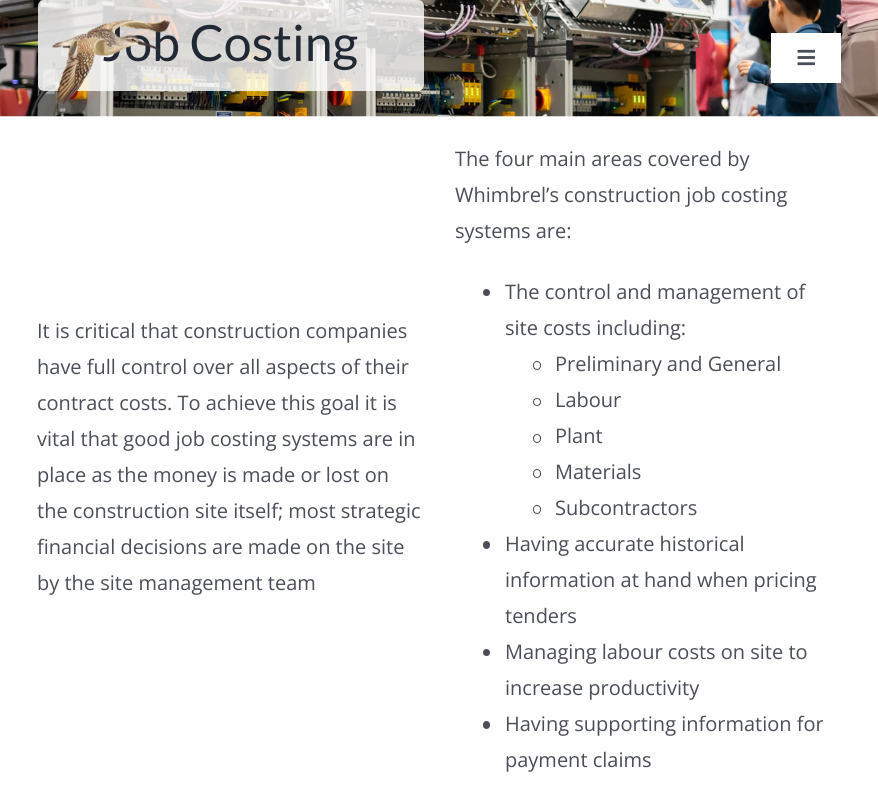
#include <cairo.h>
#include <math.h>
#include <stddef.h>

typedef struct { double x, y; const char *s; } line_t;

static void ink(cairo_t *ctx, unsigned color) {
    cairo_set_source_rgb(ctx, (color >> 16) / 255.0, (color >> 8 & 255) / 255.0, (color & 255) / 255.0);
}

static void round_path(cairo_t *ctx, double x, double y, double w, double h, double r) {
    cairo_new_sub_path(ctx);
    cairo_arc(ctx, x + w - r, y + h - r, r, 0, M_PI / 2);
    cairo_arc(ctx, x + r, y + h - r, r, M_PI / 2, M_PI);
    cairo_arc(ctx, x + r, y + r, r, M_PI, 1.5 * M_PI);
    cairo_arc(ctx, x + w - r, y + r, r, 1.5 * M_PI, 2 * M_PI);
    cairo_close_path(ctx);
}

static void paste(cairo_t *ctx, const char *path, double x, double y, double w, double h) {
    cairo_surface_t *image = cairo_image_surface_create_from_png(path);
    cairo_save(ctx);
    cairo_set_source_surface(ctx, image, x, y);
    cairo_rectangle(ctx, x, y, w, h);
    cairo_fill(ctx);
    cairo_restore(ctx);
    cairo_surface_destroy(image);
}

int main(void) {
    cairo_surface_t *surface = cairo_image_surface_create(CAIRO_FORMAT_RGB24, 878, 804);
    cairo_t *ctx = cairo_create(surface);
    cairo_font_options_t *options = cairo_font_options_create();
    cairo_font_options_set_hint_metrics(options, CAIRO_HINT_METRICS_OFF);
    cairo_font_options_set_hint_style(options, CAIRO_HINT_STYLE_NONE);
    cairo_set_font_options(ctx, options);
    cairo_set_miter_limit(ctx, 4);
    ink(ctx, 0xFFFFFF);
    cairo_paint(ctx);
    paste(ctx, "media/3.png", 0, 0, 878, 117);
    cairo_set_source_rgba(ctx, 1, 1, 1, 0.8);
    round_path(ctx, 38, 0, 386, 91, 6);
    cairo_fill(ctx);
    cairo_select_font_face(ctx, "Lato", CAIRO_FONT_SLANT_NORMAL, CAIRO_FONT_WEIGHT_NORMAL);
    cairo_set_font_size(ctx, 50);
    ink(ctx, 0x212934);
    cairo_move_to(ctx, 102, 61);
    cairo_show_text(ctx, "Job Costing");
    paste(ctx, "media/1.png", 51, 19, 119, 85);
    ink(ctx, 0xFFFFFF);
    cairo_rectangle(ctx, 771, 33, 70, 50);
    cairo_fill(ctx);
    paste(ctx, "media/2.png", 797, 49, 18, 17);
    cairo_select_font_face(ctx, "Open Sans", CAIRO_FONT_SLANT_NORMAL, CAIRO_FONT_WEIGHT_NORMAL);
    cairo_set_font_size(ctx, 20);
    ink(ctx, 0x4A4E57);
    {
        static const line_t items[] = {
            {37, 338, "It is critical that construction companies"},
            {37, 374, "have full control over all aspects of their"},
            {37, 410, "contract costs. To achieve this goal it is"},
            {37, 446, "vital that good job costing systems are in"},
            {37, 482, "place as the money is made or lost on"},
            {37, 518, "the construction site itself; most strategic"},
            {37, 554, "financial decisions are made on the site"},
            {37, 590, "by the site management team"},
            {455, 166, "The four main areas covered by"},
            {455, 202, "Whimbrel’s construction job costing"},
            {455, 238, "systems are:"},
        };
        for (size_t i = 0; i < sizeof items / sizeof *items; i++) {
            cairo_move_to(ctx, items[i].x, items[i].y);
            cairo_show_text(ctx, items[i].s);
        }
    }
    cairo_new_path(ctx);
    cairo_arc(ctx, 486.5, 292.5, 3.5, 0, 2 * M_PI);
    cairo_fill(ctx);
    cairo_move_to(ctx, 505, 299);
    cairo_show_text(ctx, "The control and management of");
    cairo_move_to(ctx, 505, 335);
    cairo_show_text(ctx, "site costs including:");
    round_path(ctx, 533.5, 361.5, 7, 8, 3.5);
    cairo_set_line_width(ctx, 1);
    cairo_stroke(ctx);
    cairo_move_to(ctx, 555, 371);
    cairo_show_text(ctx, "Preliminary and General");
    cairo_new_path(ctx);
    cairo_arc(ctx, 537, 402, 3.5, 0, 2 * M_PI);
    cairo_stroke(ctx);
    cairo_move_to(ctx, 555, 407);
    cairo_show_text(ctx, "Labour");
    round_path(ctx, 533.5, 434.5, 7, 8, 3.5);
    cairo_stroke(ctx);
    cairo_move_to(ctx, 555, 443);
    cairo_show_text(ctx, "Plant");
    round_path(ctx, 533.5, 469.5, 7, 8, 3.5);
    cairo_stroke(ctx);
    cairo_move_to(ctx, 555, 479);
    cairo_show_text(ctx, "Materials");
    round_path(ctx, 533.5, 505.5, 7, 8, 3.5);
    cairo_stroke(ctx);
    cairo_move_to(ctx, 555, 515);
    cairo_show_text(ctx, "Subcontractors");
    round_path(ctx, 483, 541, 7, 8, 3.5);
    cairo_fill(ctx);
    {
        static const line_t items[] = {
            {505, 551, "Having accurate historical"},
            {505, 587, "information at hand when pricing"},
            {505, 623, "tenders"},
        };
        for (size_t i = 0; i < sizeof items / sizeof *items; i++) {
            cairo_move_to(ctx, items[i].x, items[i].y);
            cairo_show_text(ctx, items[i].s);
        }
    }
    cairo_new_path(ctx);
    cairo_arc(ctx, 486.5, 652.5, 3.5, 0, 2 * M_PI);
    cairo_fill(ctx);
    cairo_move_to(ctx, 505, 659);
    cairo_show_text(ctx, "Managing labour costs on site to");
    cairo_move_to(ctx, 505, 695);
    cairo_show_text(ctx, "increase productivity");
    round_path(ctx, 483, 721, 7, 8, 3.5);
    cairo_fill(ctx);
    cairo_move_to(ctx, 505, 731);
    cairo_show_text(ctx, "Having supporting information for");
    cairo_move_to(ctx, 505, 767);
    cairo_show_text(ctx, "payment claims");
    cairo_surface_write_to_png(surface, "image.png");
    cairo_font_options_destroy(options);
    cairo_destroy(ctx);
    cairo_surface_destroy(surface);
    return 0;
}
